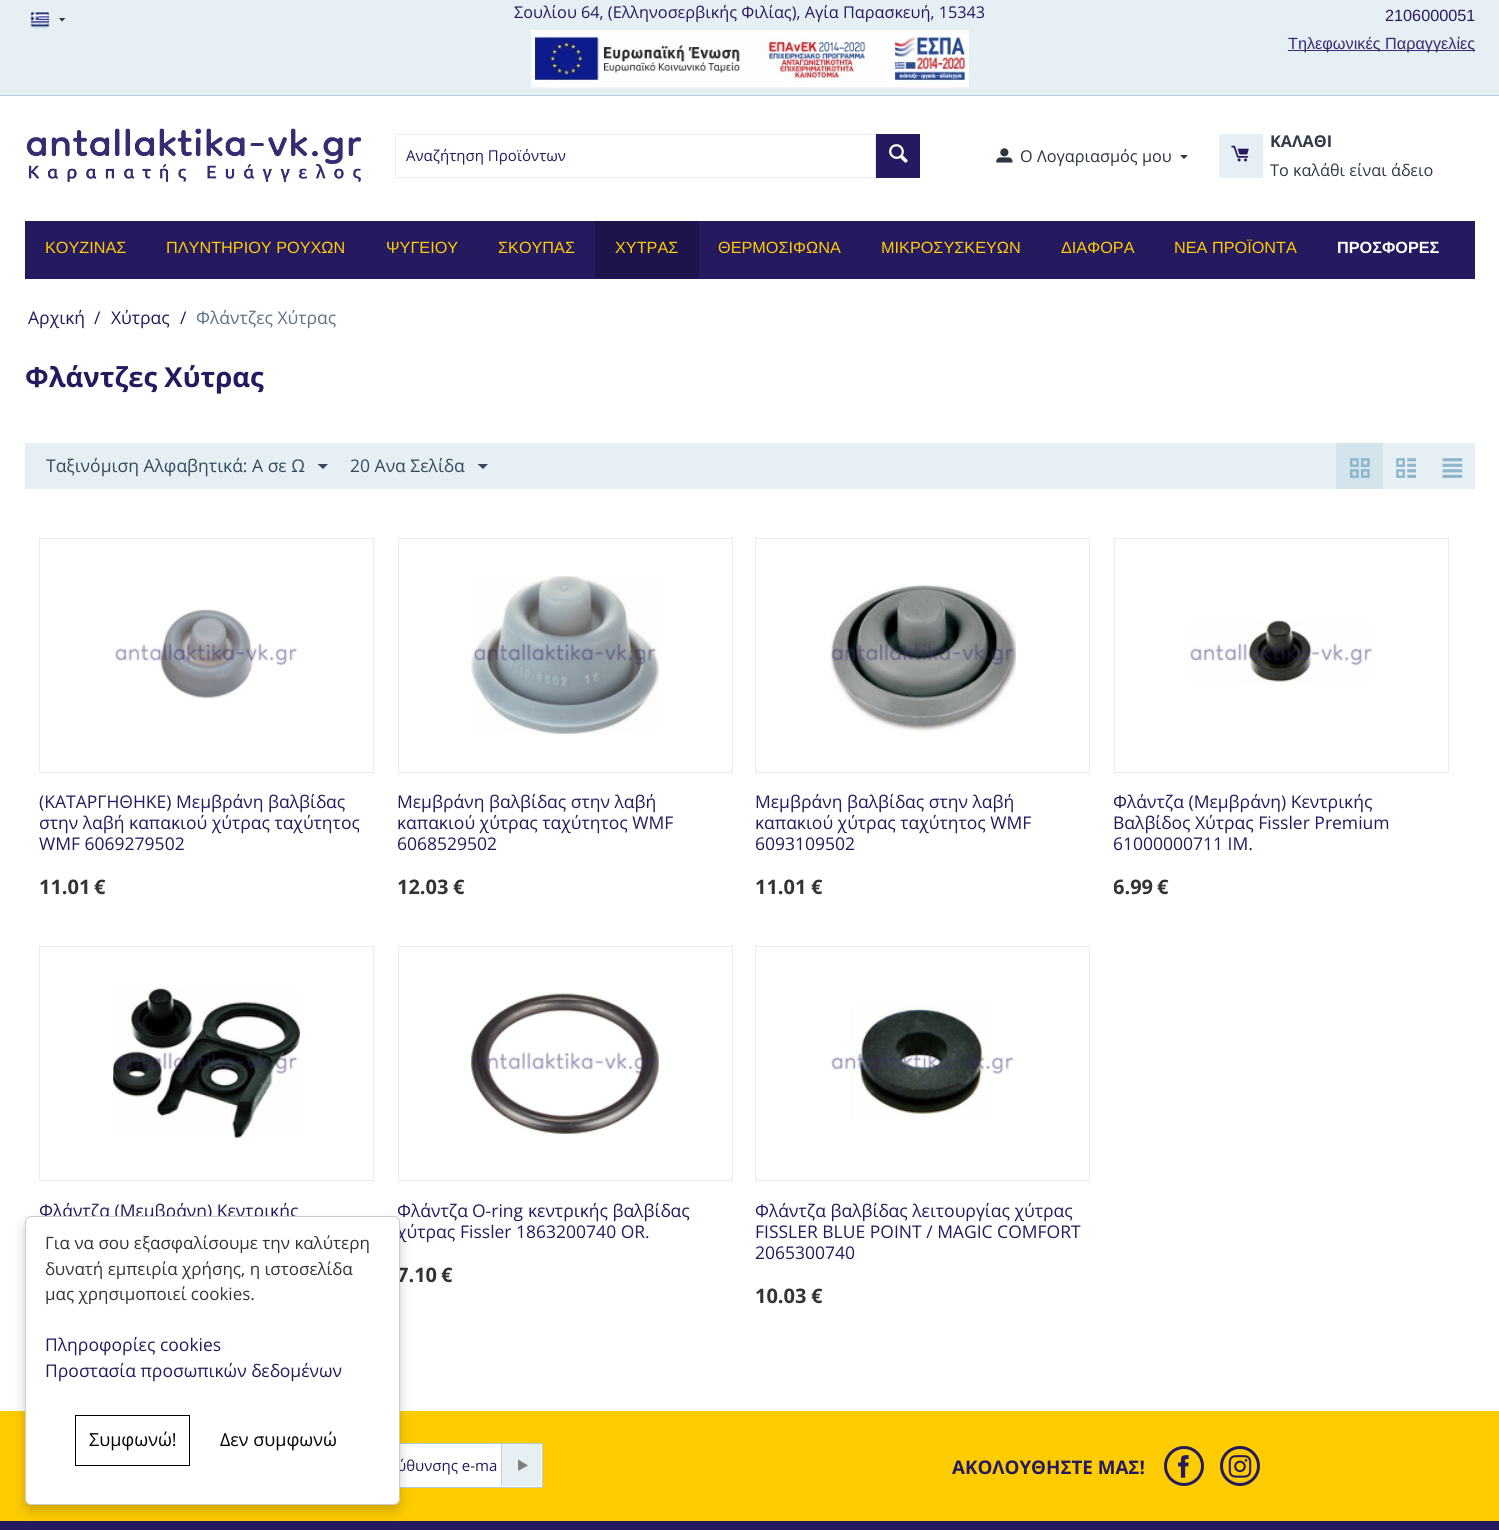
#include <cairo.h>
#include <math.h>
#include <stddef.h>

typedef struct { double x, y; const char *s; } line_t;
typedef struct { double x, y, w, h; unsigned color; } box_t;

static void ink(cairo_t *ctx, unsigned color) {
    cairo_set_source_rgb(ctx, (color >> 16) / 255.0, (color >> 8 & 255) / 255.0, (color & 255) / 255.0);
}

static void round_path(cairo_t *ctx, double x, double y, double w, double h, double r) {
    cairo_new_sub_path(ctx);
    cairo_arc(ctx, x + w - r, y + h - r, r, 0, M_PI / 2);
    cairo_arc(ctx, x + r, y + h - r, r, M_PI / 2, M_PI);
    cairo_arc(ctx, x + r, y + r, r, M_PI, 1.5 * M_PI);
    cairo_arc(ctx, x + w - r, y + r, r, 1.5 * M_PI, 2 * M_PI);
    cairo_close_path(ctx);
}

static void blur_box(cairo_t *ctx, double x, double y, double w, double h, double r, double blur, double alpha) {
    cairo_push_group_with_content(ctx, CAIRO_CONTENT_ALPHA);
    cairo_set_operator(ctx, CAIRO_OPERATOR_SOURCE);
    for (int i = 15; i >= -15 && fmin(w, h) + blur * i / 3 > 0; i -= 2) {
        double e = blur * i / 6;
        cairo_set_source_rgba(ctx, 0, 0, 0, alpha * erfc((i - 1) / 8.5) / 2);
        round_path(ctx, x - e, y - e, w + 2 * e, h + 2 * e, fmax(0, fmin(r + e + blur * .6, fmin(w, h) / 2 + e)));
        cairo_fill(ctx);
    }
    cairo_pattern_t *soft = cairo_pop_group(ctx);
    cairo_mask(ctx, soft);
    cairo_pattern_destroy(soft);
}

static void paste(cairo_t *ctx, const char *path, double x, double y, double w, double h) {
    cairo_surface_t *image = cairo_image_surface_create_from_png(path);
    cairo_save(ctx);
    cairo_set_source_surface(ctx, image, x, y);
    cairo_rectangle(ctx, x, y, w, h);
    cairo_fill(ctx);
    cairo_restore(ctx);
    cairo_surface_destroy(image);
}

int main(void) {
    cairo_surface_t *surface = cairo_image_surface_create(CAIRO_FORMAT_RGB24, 1499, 1530);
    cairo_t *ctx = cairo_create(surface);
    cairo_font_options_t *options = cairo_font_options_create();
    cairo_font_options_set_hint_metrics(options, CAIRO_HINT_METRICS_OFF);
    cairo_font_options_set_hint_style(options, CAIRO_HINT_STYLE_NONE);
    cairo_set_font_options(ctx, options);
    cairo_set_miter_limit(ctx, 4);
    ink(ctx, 0xFFFFFF);
    cairo_paint(ctx);
    ink(ctx, 0xE6EFF4);
    cairo_rectangle(ctx, 0, 0, 1499, 95);
    cairo_fill(ctx);
    ink(ctx, 0xB1CDDD);
    cairo_rectangle(ctx, 0, 95, 1499, 1);
    cairo_fill(ctx);
    paste(ctx, "media/1.png", 30, 12, 20, 17);
    ink(ctx, 0x2D3540);
    cairo_new_path(ctx);
    cairo_move_to(ctx, 62, 21.5);
    cairo_line_to(ctx, 59, 18);
    cairo_line_to(ctx, 65.5, 18);
    cairo_close_path(ctx);
    cairo_fill(ctx);
    cairo_select_font_face(ctx, "Open Sans", CAIRO_FONT_SLANT_NORMAL, CAIRO_FONT_WEIGHT_NORMAL);
    cairo_set_font_size(ctx, 16.25);
    ink(ctx, 0x25195F);
    cairo_move_to(ctx, 514, 18);
    cairo_show_text(ctx, "Σουλίου 64, (Ελληνοσερβικής Φιλίας), Αγία Παρασκευή, 15343");
    paste(ctx, "media/2.png", 531, 30, 438, 58);
    cairo_select_font_face(ctx, "Liberation Sans", CAIRO_FONT_SLANT_NORMAL, CAIRO_FONT_WEIGHT_NORMAL);
    cairo_move_to(ctx, 1385, 21);
    cairo_show_text(ctx, "2106000051");
    ink(ctx, 0x372B71);
    cairo_rectangle(ctx, 1288, 50, 187, 1);
    cairo_fill(ctx);
    cairo_move_to(ctx, 1288, 49);
    cairo_show_text(ctx, "Τηλεφωνικές Παραγγελίες");
    paste(ctx, "media/3.png", 26, 128, 335, 54);
    cairo_rectangle(ctx, 395.5, 134.5, 480, 43);
    ink(ctx, 0xE6EFF4);
    cairo_set_line_width(ctx, 1);
    cairo_stroke(ctx);
    cairo_select_font_face(ctx, "Open Sans", CAIRO_FONT_SLANT_NORMAL, CAIRO_FONT_WEIGHT_NORMAL);
    cairo_set_font_size(ctx, 15);
    ink(ctx, 0x25195F);
    cairo_move_to(ctx, 406, 161);
    cairo_show_text(ctx, "Αναζήτηση Προϊόντων");
    cairo_rectangle(ctx, 876, 134, 44, 44);
    cairo_fill(ctx);
    paste(ctx, "media/4.png", 889, 144, 19, 19);
    paste(ctx, "media/5.png", 996, 148, 17, 15);
    cairo_set_font_size(ctx, 16.25);
    ink(ctx, 0x2D3540);
    cairo_move_to(ctx, 1020, 162);
    cairo_show_text(ctx, "Ο Λογαριασμός μου");
    cairo_new_path(ctx);
    cairo_move_to(ctx, 1184, 159);
    cairo_line_to(ctx, 1180, 155);
    cairo_line_to(ctx, 1188, 155);
    cairo_close_path(ctx);
    cairo_fill(ctx);
    ink(ctx, 0xE6EFF4);
    cairo_rectangle(ctx, 1219, 134, 44, 44);
    cairo_fill(ctx);
    paste(ctx, "media/6.png", 1231, 145, 18, 17);
    cairo_select_font_face(ctx, "Open Sans", CAIRO_FONT_SLANT_NORMAL, CAIRO_FONT_WEIGHT_BOLD);
    ink(ctx, 0x2E3A47);
    cairo_move_to(ctx, 1270, 147);
    cairo_show_text(ctx, "ΚΑΛΑΘΙ");
    cairo_select_font_face(ctx, "Open Sans", CAIRO_FONT_SLANT_NORMAL, CAIRO_FONT_WEIGHT_NORMAL);
    cairo_move_to(ctx, 1270, 176);
    cairo_show_text(ctx, "Το καλάθι είναι άδειο");
    ink(ctx, 0x25195F);
    cairo_rectangle(ctx, 25, 221, 1450, 58);
    cairo_fill(ctx);
    cairo_select_font_face(ctx, "Liberation Sans", CAIRO_FONT_SLANT_NORMAL, CAIRO_FONT_WEIGHT_NORMAL);
    ink(ctx, 0xFFCC00);
    {
        static const line_t items[] = {
            {45, 253, "ΚΟΥΖΙΝΑΣ"},
            {166, 253, "ΠΛΥΝΤΗΡΙΟΥ ΡΟΥΧΩΝ"},
            {386, 253, "ΨΥΓΕΙΟΥ"},
            {498, 253, "ΣΚΟΥΠΑΣ"},
        };
        for (size_t i = 0; i < sizeof items / sizeof *items; i++) {
            cairo_move_to(ctx, items[i].x, items[i].y);
            cairo_show_text(ctx, items[i].s);
        }
    }
    ink(ctx, 0x1D144B);
    cairo_rectangle(ctx, 595, 221, 104, 58);
    cairo_fill(ctx);
    ink(ctx, 0xFFCC00);
    {
        static const line_t items[] = {
            {615, 253, "ΧΥΤΡΑΣ"},
            {718, 253, "ΘΕΡΜΟΣΙΦΩΝΑ"},
            {881, 253, "ΜΙΚΡΟΣΥΣΚΕΥΩΝ"},
            {1061, 253, "ΔΙΑΦΟΡΑ"},
            {1174, 253, "ΝΕΑ ΠΡΟΪΟΝΤΑ"},
        };
        for (size_t i = 0; i < sizeof items / sizeof *items; i++) {
            cairo_move_to(ctx, items[i].x, items[i].y);
            cairo_show_text(ctx, items[i].s);
        }
    }
    cairo_select_font_face(ctx, "Liberation Sans", CAIRO_FONT_SLANT_NORMAL, CAIRO_FONT_WEIGHT_BOLD);
    ink(ctx, 0xFFFFFF);
    cairo_move_to(ctx, 1337, 253);
    cairo_show_text(ctx, "ΠΡΟΣΦΟΡΕΣ");
    cairo_select_font_face(ctx, "Open Sans", CAIRO_FONT_SLANT_NORMAL, CAIRO_FONT_WEIGHT_NORMAL);
    cairo_set_font_size(ctx, 17.5);
    ink(ctx, 0x25195F);
    cairo_move_to(ctx, 28, 324);
    cairo_show_text(ctx, "Αρχική");
    cairo_select_font_face(ctx, "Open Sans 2", CAIRO_FONT_SLANT_NORMAL, CAIRO_FONT_WEIGHT_NORMAL);
    cairo_move_to(ctx, 94, 324);
    cairo_show_text(ctx, "/");
    cairo_select_font_face(ctx, "Open Sans", CAIRO_FONT_SLANT_NORMAL, CAIRO_FONT_WEIGHT_NORMAL);
    cairo_move_to(ctx, 111, 324);
    cairo_show_text(ctx, "Χύτρας");
    cairo_select_font_face(ctx, "Open Sans 2", CAIRO_FONT_SLANT_NORMAL, CAIRO_FONT_WEIGHT_NORMAL);
    cairo_move_to(ctx, 180, 324);
    cairo_show_text(ctx, "/");
    cairo_select_font_face(ctx, "Open Sans", CAIRO_FONT_SLANT_NORMAL, CAIRO_FONT_WEIGHT_NORMAL);
    ink(ctx, 0x5A728B);
    cairo_move_to(ctx, 196, 324);
    cairo_show_text(ctx, "Φλάντζες Χύτρας");
    cairo_select_font_face(ctx, "Open Sans", CAIRO_FONT_SLANT_NORMAL, CAIRO_FONT_WEIGHT_BOLD);
    cairo_set_font_size(ctx, 27.5);
    ink(ctx, 0x25195F);
    cairo_move_to(ctx, 25, 387);
    cairo_show_text(ctx, "Φλάντζες Χύτρας");
    ink(ctx, 0xE6EFF4);
    cairo_rectangle(ctx, 25, 443, 1450, 46);
    cairo_fill(ctx);
    cairo_select_font_face(ctx, "Open Sans", CAIRO_FONT_SLANT_NORMAL, CAIRO_FONT_WEIGHT_NORMAL);
    cairo_set_font_size(ctx, 17.5);
    ink(ctx, 0x34495E);
    cairo_move_to(ctx, 46, 472);
    cairo_show_text(ctx, "Ταξινόμιση Αλφαβητικά: A σε Ω");
    cairo_new_path(ctx);
    cairo_move_to(ctx, 323, 469);
    cairo_line_to(ctx, 317.5, 464);
    cairo_line_to(ctx, 328, 464);
    cairo_close_path(ctx);
    cairo_fill(ctx);
    cairo_move_to(ctx, 350, 472);
    cairo_show_text(ctx, "20 Ανα Σελίδα");
    cairo_new_path(ctx);
    cairo_move_to(ctx, 483, 469);
    cairo_line_to(ctx, 477.5, 464);
    cairo_line_to(ctx, 488, 464);
    cairo_close_path(ctx);
    cairo_fill(ctx);
    ink(ctx, 0xD4E4EC);
    cairo_rectangle(ctx, 1336, 443, 47, 46);
    cairo_fill(ctx);
    paste(ctx, "media/7.png", 1350, 458, 20, 20);
    paste(ctx, "media/8.png", 1396, 458, 20, 20);
    paste(ctx, "media/9.png", 1442, 458, 21, 20);
    cairo_rectangle(ctx, 39.5, 538.5, 334, 234);
    ink(ctx, 0xEBEBEB);
    cairo_stroke(ctx);
    paste(ctx, "media/10.png", 115, 609, 183, 90);
    ink(ctx, 0x25195F);
    {
        static const line_t items[] = {
            {39, 808, "(ΚΑΤΑΡΓΗΘΗΚΕ) Μεμβράνη βαλβίδας"},
            {39, 829, "στην λαβή καπακιού χύτρας ταχύτητος"},
            {39, 850, "WMF 6069279502"},
        };
        for (size_t i = 0; i < sizeof items / sizeof *items; i++) {
            cairo_move_to(ctx, items[i].x, items[i].y);
            cairo_show_text(ctx, items[i].s);
        }
    }
    cairo_select_font_face(ctx, "Open Sans", CAIRO_FONT_SLANT_NORMAL, CAIRO_FONT_WEIGHT_BOLD);
    cairo_set_font_size(ctx, 20);
    ink(ctx, 0x343434);
    cairo_move_to(ctx, 39, 894);
    cairo_show_text(ctx, "11.01");
    cairo_move_to(ctx, 94, 894);
    cairo_show_text(ctx, "€");
    cairo_rectangle(ctx, 398.5, 538.5, 334, 234);
    ink(ctx, 0xEBEBEB);
    cairo_stroke(ctx);
    paste(ctx, "media/11.png", 471, 576, 188, 158);
    cairo_select_font_face(ctx, "Open Sans", CAIRO_FONT_SLANT_NORMAL, CAIRO_FONT_WEIGHT_NORMAL);
    cairo_set_font_size(ctx, 17.5);
    ink(ctx, 0x25195F);
    cairo_move_to(ctx, 397, 808);
    cairo_show_text(ctx, "Μεμβράνη βαλβίδας στην λαβή");
    cairo_move_to(ctx, 397, 829);
    cairo_show_text(ctx, "καπακιού χύτρας ταχύτητος WMF");
    cairo_save(ctx);
    cairo_rectangle(ctx, 398, 793, 335, 62);
    cairo_clip(ctx);
    cairo_move_to(ctx, 397, 850);
    cairo_show_text(ctx, "6068529502");
    cairo_restore(ctx);
    cairo_select_font_face(ctx, "Open Sans", CAIRO_FONT_SLANT_NORMAL, CAIRO_FONT_WEIGHT_BOLD);
    cairo_set_font_size(ctx, 20);
    ink(ctx, 0x343434);
    cairo_move_to(ctx, 397, 894);
    cairo_show_text(ctx, "12.03");
    cairo_move_to(ctx, 453, 894);
    cairo_show_text(ctx, "€");
    cairo_rectangle(ctx, 755.5, 538.5, 334, 234);
    ink(ctx, 0xEBEBEB);
    cairo_stroke(ctx);
    paste(ctx, "media/12.png", 830, 585, 186, 147);
    cairo_select_font_face(ctx, "Open Sans", CAIRO_FONT_SLANT_NORMAL, CAIRO_FONT_WEIGHT_NORMAL);
    cairo_set_font_size(ctx, 17.5);
    ink(ctx, 0x25195F);
    {
        static const line_t items[] = {
            {755, 808, "Μεμβράνη βαλβίδας στην λαβή"},
            {755, 829, "καπακιού χύτρας ταχύτητος WMF"},
            {755, 850, "6093109502"},
        };
        for (size_t i = 0; i < sizeof items / sizeof *items; i++) {
            cairo_move_to(ctx, items[i].x, items[i].y);
            cairo_show_text(ctx, items[i].s);
        }
    }
    cairo_select_font_face(ctx, "Open Sans", CAIRO_FONT_SLANT_NORMAL, CAIRO_FONT_WEIGHT_BOLD);
    cairo_set_font_size(ctx, 20);
    ink(ctx, 0x343434);
    cairo_move_to(ctx, 755, 894);
    cairo_show_text(ctx, "11.01");
    cairo_move_to(ctx, 811, 894);
    cairo_show_text(ctx, "€");
    cairo_rectangle(ctx, 1114.5, 538.5, 334, 234);
    ink(ctx, 0xEBEBEB);
    cairo_stroke(ctx);
    paste(ctx, "media/13.png", 1190, 620, 183, 64);
    cairo_select_font_face(ctx, "Open Sans", CAIRO_FONT_SLANT_NORMAL, CAIRO_FONT_WEIGHT_NORMAL);
    cairo_set_font_size(ctx, 17.5);
    ink(ctx, 0x25195F);
    {
        static const line_t items[] = {
            {1113, 808, "Φλάντζα (Μεμβράνη) Κεντρικής"},
            {1113, 829, "Βαλβίδος Χύτρας Fissler Premium"},
            {1113, 850, "61000000711 IM."},
        };
        for (size_t i = 0; i < sizeof items / sizeof *items; i++) {
            cairo_move_to(ctx, items[i].x, items[i].y);
            cairo_show_text(ctx, items[i].s);
        }
    }
    cairo_save(ctx);
    cairo_rectangle(ctx, 1114, 873, 335, 27);
    cairo_clip(ctx);
    cairo_select_font_face(ctx, "Open Sans", CAIRO_FONT_SLANT_NORMAL, CAIRO_FONT_WEIGHT_BOLD);
    cairo_set_font_size(ctx, 20);
    ink(ctx, 0x343434);
    cairo_move_to(ctx, 1113, 894);
    cairo_show_text(ctx, "6.99");
    cairo_restore(ctx);
    cairo_select_font_face(ctx, "Open Sans", CAIRO_FONT_SLANT_NORMAL, CAIRO_FONT_WEIGHT_BOLD);
    cairo_set_font_size(ctx, 20);
    ink(ctx, 0x343434);
    cairo_move_to(ctx, 1157, 894);
    cairo_show_text(ctx, "€");
    cairo_rectangle(ctx, 39.5, 946.5, 334, 234);
    ink(ctx, 0xEBEBEB);
    cairo_stroke(ctx);
    paste(ctx, "media/14.png", 113, 988, 187, 150);
    cairo_select_font_face(ctx, "Open Sans", CAIRO_FONT_SLANT_NORMAL, CAIRO_FONT_WEIGHT_NORMAL);
    cairo_set_font_size(ctx, 17.5);
    ink(ctx, 0x25195F);
    cairo_move_to(ctx, 39, 1217);
    cairo_show_text(ctx, "Φλάντζα (Μεμβράνη) Κεντρικής");
    cairo_rectangle(ctx, 398.5, 946.5, 334, 234);
    ink(ctx, 0xEBEBEB);
    cairo_stroke(ctx);
    paste(ctx, "media/15.png", 471, 993, 188, 141);
    cairo_save(ctx);
    cairo_rectangle(ctx, 398, 1201, 335, 43);
    cairo_clip(ctx);
    ink(ctx, 0x25195F);
    cairo_move_to(ctx, 397, 1217);
    cairo_show_text(ctx, "Φλάντζα");
    cairo_restore(ctx);
    cairo_select_font_face(ctx, "Open Sans 2", CAIRO_FONT_SLANT_NORMAL, CAIRO_FONT_WEIGHT_NORMAL);
    ink(ctx, 0x25195F);
    cairo_move_to(ctx, 472, 1217);
    cairo_show_text(ctx, "O-ring");
    cairo_select_font_face(ctx, "Open Sans", CAIRO_FONT_SLANT_NORMAL, CAIRO_FONT_WEIGHT_NORMAL);
    cairo_move_to(ctx, 528, 1217);
    cairo_show_text(ctx, "κεντρικής βαλβίδας");
    cairo_move_to(ctx, 397, 1238);
    cairo_show_text(ctx, "χύτρας");
    cairo_select_font_face(ctx, "Open Sans 2", CAIRO_FONT_SLANT_NORMAL, CAIRO_FONT_WEIGHT_NORMAL);
    cairo_move_to(ctx, 460, 1238);
    cairo_show_text(ctx, "Fissler 1863200740 OR.");
    cairo_select_font_face(ctx, "Open Sans", CAIRO_FONT_SLANT_NORMAL, CAIRO_FONT_WEIGHT_BOLD);
    cairo_set_font_size(ctx, 20);
    ink(ctx, 0x343434);
    cairo_move_to(ctx, 397, 1282);
    cairo_show_text(ctx, "7.10");
    cairo_move_to(ctx, 441, 1282);
    cairo_show_text(ctx, "€");
    cairo_rectangle(ctx, 755.5, 946.5, 334, 234);
    ink(ctx, 0xEBEBEB);
    cairo_stroke(ctx);
    paste(ctx, "media/16.png", 831, 1005, 183, 114);
    cairo_select_font_face(ctx, "Open Sans", CAIRO_FONT_SLANT_NORMAL, CAIRO_FONT_WEIGHT_NORMAL);
    cairo_set_font_size(ctx, 17.5);
    ink(ctx, 0x25195F);
    cairo_move_to(ctx, 755, 1217);
    cairo_show_text(ctx, "Φλάντζα βαλβίδας λειτουργίας χύτρας");
    cairo_select_font_face(ctx, "Open Sans 2", CAIRO_FONT_SLANT_NORMAL, CAIRO_FONT_WEIGHT_NORMAL);
    cairo_move_to(ctx, 755, 1238);
    cairo_show_text(ctx, "FISSLER BLUE POINT / MAGIC COMFORT");
    cairo_move_to(ctx, 755, 1259);
    cairo_show_text(ctx, "2065300740");
    cairo_select_font_face(ctx, "Open Sans", CAIRO_FONT_SLANT_NORMAL, CAIRO_FONT_WEIGHT_BOLD);
    cairo_set_font_size(ctx, 20);
    ink(ctx, 0x343434);
    cairo_move_to(ctx, 755, 1303);
    cairo_show_text(ctx, "10.03");
    cairo_move_to(ctx, 811, 1303);
    cairo_show_text(ctx, "€");
    {
        static const box_t items[] = {
            {0, 1521, 1499, 9, 0x25195F},
            {0, 1411, 1499, 110, 0xFFCC00},
            {400, 1444, 142, 43, 0xFFFFFF},
        };
        for (size_t i = 0; i < sizeof items / sizeof *items; i++) {
            ink(ctx, items[i].color);
            cairo_rectangle(ctx, items[i].x, items[i].y, items[i].w, items[i].h);
            cairo_fill(ctx);
        }
    }
    cairo_rectangle(ctx, 294.5, 1443.5, 248, 44);
    ink(ctx, 0xB1CDDD);
    cairo_stroke(ctx);
    ink(ctx, 0x000000);
    blur_box(ctx, 25, 1223, 375, 288, 6, 6, 0.2);
    cairo_select_font_face(ctx, "Open Sans", CAIRO_FONT_SLANT_NORMAL, CAIRO_FONT_WEIGHT_NORMAL);
    cairo_set_font_size(ctx, 15);
    ink(ctx, 0x25195F);
    cairo_move_to(ctx, 397, 1471);
    cairo_show_text(ctx, "ύθυνσης e-ma");
    ink(ctx, 0xFFFFFF);
    round_path(ctx, 25.5, 1216.5, 374, 288, 5.5);
    cairo_fill_preserve(ctx);
    ink(ctx, 0xCCCCCC);
    cairo_stroke(ctx);
    cairo_set_font_size(ctx, 17);
    ink(ctx, 0x343434);
    {
        static const line_t items[] = {
            {45, 1249, "Για να σου εξασφαλίσουμε την καλύτερη"},
            {45, 1275, "δυνατή εμπειρία χρήσης, η ιστοσελίδα"},
            {45, 1300, "μας χρησιμοποιεί cookies."},
        };
        for (size_t i = 0; i < sizeof items / sizeof *items; i++) {
            cairo_move_to(ctx, items[i].x, items[i].y);
            cairo_show_text(ctx, items[i].s);
        }
    }
    cairo_set_font_size(ctx, 17.5);
    ink(ctx, 0x25195F);
    cairo_move_to(ctx, 45, 1351);
    cairo_show_text(ctx, "Πληροφορίες cookies");
    cairo_move_to(ctx, 45, 1377);
    cairo_show_text(ctx, "Προστασία προσωπικών δεδομένων");
    cairo_rectangle(ctx, 75.5, 1415.5, 114, 50);
    ink(ctx, 0x000000);
    cairo_stroke(ctx);
    cairo_set_font_size(ctx, 18);
    cairo_move_to(ctx, 89, 1446);
    cairo_show_text(ctx, "Συμφωνώ!");
    cairo_move_to(ctx, 220, 1446);
    cairo_show_text(ctx, "Δεν συμφωνώ");
    ink(ctx, 0xE6EFF4);
    cairo_rectangle(ctx, 502, 1444, 39, 42);
    cairo_fill(ctx);
    ink(ctx, 0xCDCDCD);
    cairo_rectangle(ctx, 501, 1444, 1, 42);
    cairo_fill(ctx);
    ink(ctx, 0x808080);
    cairo_new_path(ctx);
    cairo_move_to(ctx, 518, 1459.5);
    cairo_line_to(ctx, 528, 1465.5);
    cairo_line_to(ctx, 518, 1471);
    cairo_close_path(ctx);
    cairo_fill(ctx);
    cairo_select_font_face(ctx, "Open Sans", CAIRO_FONT_SLANT_NORMAL, CAIRO_FONT_WEIGHT_BOLD);
    cairo_set_font_size(ctx, 18.75);
    ink(ctx, 0x25195F);
    cairo_move_to(ctx, 952, 1474);
    cairo_show_text(ctx, "ΑΚΟΛΟΥΘΗΣΤΕ ΜΑΣ!");
    cairo_new_path(ctx);
    cairo_arc(ctx, 1184, 1466, 18.5, 0, 2 * M_PI);
    cairo_set_line_width(ctx, 3);
    cairo_stroke(ctx);
    paste(ctx, "media/17.png", 1178, 1455, 11, 23);
    cairo_arc(ctx, 1240, 1466, 18.5, 0, 2 * M_PI);
    cairo_stroke(ctx);
    paste(ctx, "media/18.png", 1228, 1455, 24, 23);
    cairo_surface_write_to_png(surface, "image.png");
    cairo_font_options_destroy(options);
    cairo_destroy(ctx);
    cairo_surface_destroy(surface);
    return 0;
}
